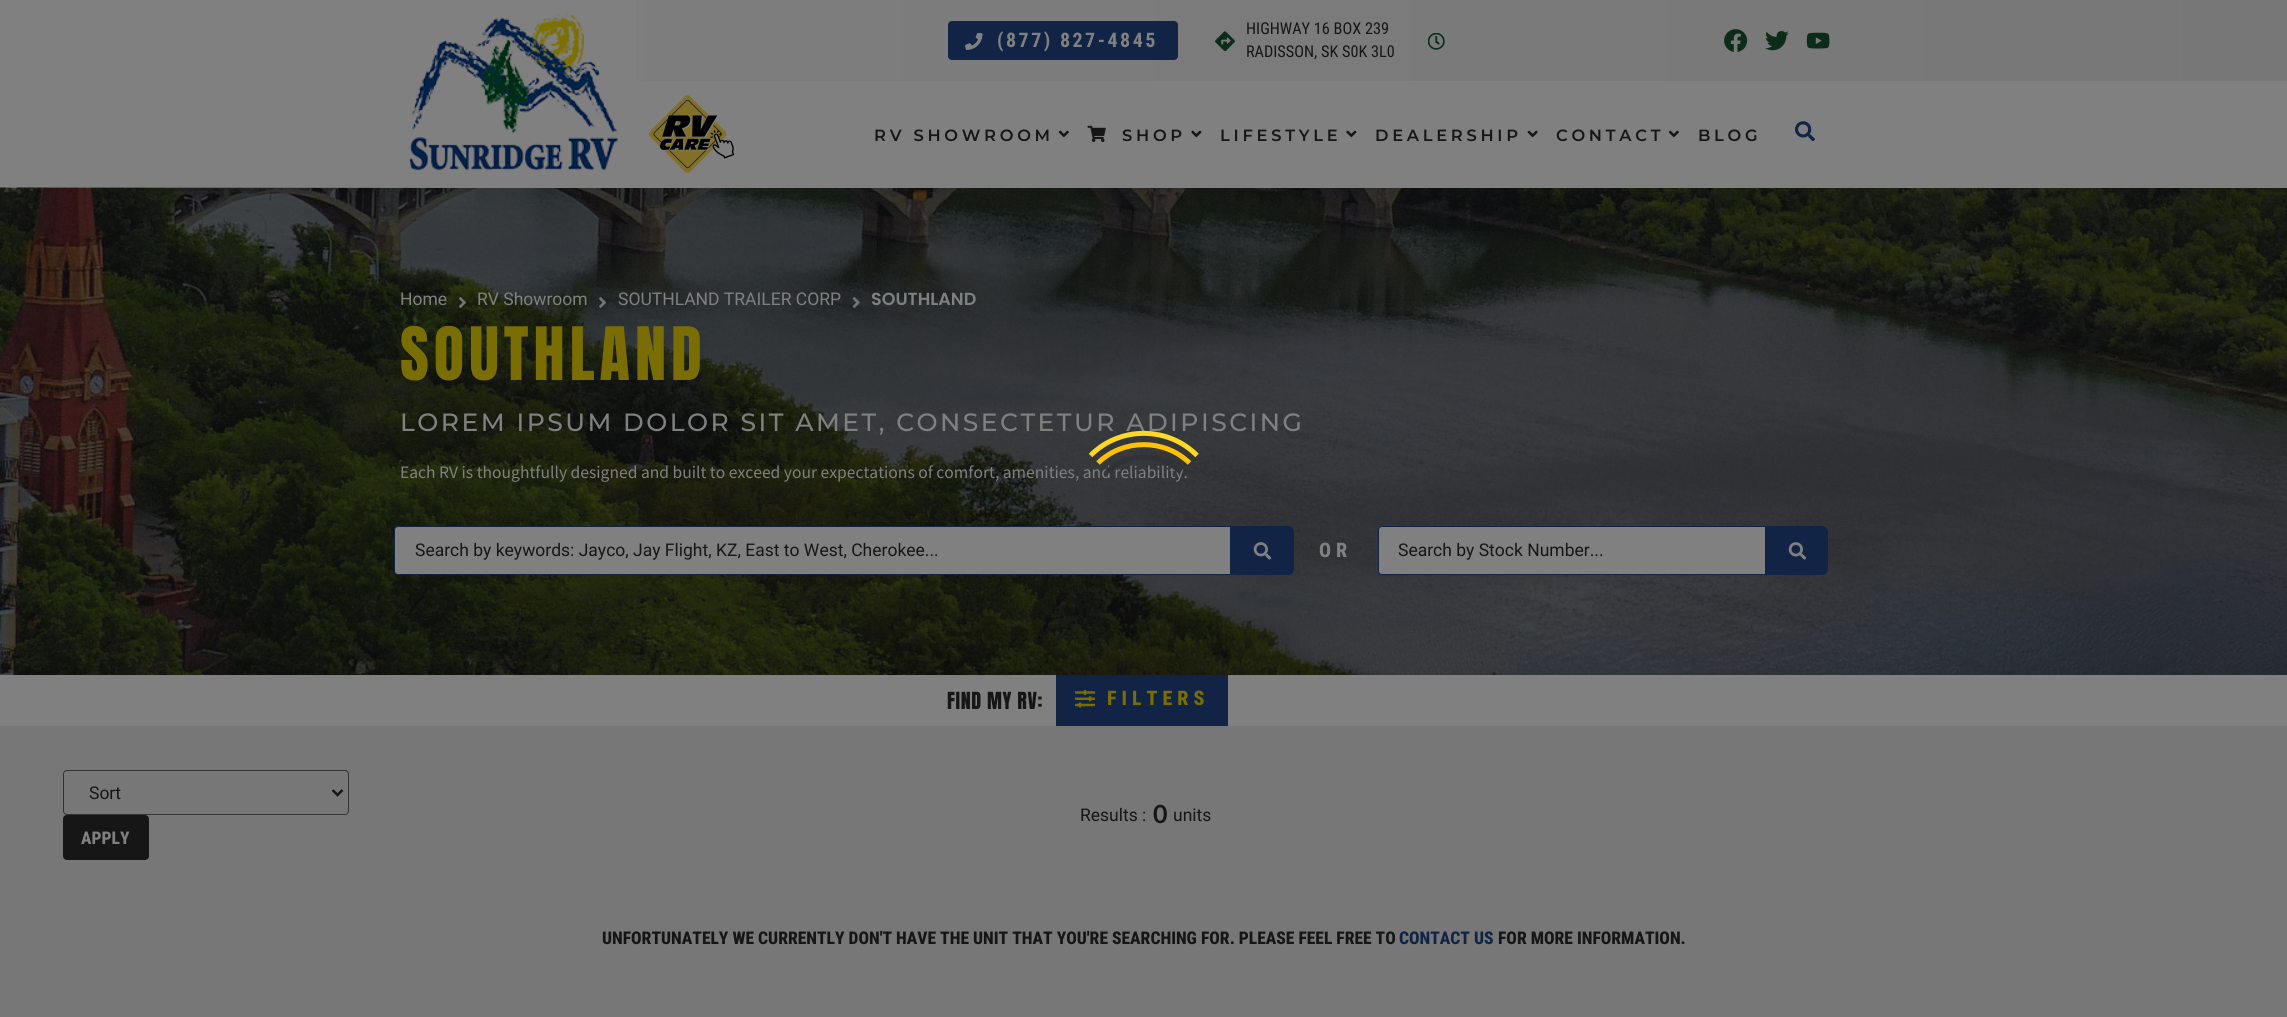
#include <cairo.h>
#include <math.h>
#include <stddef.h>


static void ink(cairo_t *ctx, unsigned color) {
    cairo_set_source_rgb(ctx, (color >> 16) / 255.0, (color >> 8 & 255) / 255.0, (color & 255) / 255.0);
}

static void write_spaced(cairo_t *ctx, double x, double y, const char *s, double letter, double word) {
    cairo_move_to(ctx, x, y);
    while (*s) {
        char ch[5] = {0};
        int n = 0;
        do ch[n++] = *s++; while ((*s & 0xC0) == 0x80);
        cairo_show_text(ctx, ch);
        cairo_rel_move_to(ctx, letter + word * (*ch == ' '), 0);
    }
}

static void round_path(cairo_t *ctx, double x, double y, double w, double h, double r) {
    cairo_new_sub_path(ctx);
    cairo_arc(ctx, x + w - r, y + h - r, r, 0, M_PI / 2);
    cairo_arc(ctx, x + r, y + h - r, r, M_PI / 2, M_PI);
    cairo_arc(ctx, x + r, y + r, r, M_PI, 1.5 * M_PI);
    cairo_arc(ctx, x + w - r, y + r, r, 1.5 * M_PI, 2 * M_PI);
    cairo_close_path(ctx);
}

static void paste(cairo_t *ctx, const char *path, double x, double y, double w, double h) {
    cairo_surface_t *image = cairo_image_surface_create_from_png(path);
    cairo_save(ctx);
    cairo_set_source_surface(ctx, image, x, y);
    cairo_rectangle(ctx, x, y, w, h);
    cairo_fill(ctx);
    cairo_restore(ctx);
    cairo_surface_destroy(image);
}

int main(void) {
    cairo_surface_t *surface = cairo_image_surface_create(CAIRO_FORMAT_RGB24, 2287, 1017);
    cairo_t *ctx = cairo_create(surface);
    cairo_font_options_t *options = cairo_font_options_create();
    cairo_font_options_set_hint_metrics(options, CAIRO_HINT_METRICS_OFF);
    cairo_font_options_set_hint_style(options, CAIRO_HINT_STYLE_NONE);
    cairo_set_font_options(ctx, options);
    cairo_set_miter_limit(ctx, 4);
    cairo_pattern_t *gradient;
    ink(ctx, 0x808080);
    cairo_paint(ctx);
    gradient = cairo_pattern_create_linear(0, 41, 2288, 41);
    cairo_pattern_add_color_stop_rgba(gradient, 0, 0.502, 0.502, 0.502, 1);
    cairo_pattern_add_color_stop_rgba(gradient, 1, 0.467, 0.467, 0.467, 1);
    cairo_set_source(ctx, gradient);
    cairo_pattern_destroy(gradient);
    cairo_rectangle(ctx, 636, 0, 1651, 81);
    cairo_fill(ctx);
    ink(ctx, 0x112446);
    round_path(ctx, 948, 21, 230, 39, 4);
    cairo_fill(ctx);
    paste(ctx, "media/1.png", 965, 33, 18, 17);
    cairo_select_font_face(ctx, "Roboto Condensed", CAIRO_FONT_SLANT_NORMAL, CAIRO_FONT_WEIGHT_BOLD);
    cairo_set_font_size(ctx, 20);
    ink(ctx, 0x808080);
    write_spaced(ctx, 997, 47, "(877) 827-4845", 2.5, 0);
    paste(ctx, "media/2.png", 1215, 31, 20, 20);
    cairo_select_font_face(ctx, "Roboto Condensed", CAIRO_FONT_SLANT_NORMAL, CAIRO_FONT_WEIGHT_NORMAL);
    cairo_set_font_size(ctx, 16.25);
    ink(ctx, 0x161616);
    cairo_move_to(ctx, 1246, 34);
    cairo_show_text(ctx, "HIGHWAY 16 BOX 239");
    cairo_move_to(ctx, 1246, 57);
    cairo_show_text(ctx, "RADISSON, SK S0K 3L0");
    paste(ctx, "media/3.png", 1428, 33, 17, 17);
    paste(ctx, "media/4.png", 1724, 29, 24, 23);
    paste(ctx, "media/5.png", 1765, 31, 24, 20);
    paste(ctx, "media/6.png", 1806, 32, 24, 17);
    paste(ctx, "media/14.png", 0, 187, 2287, 488);
    gradient = cairo_pattern_create_linear(2025, -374, 263, 643);
    cairo_pattern_add_color_stop_rgba(gradient, 0.8, 0.502, 0.502, 0.502, 1);
    cairo_pattern_add_color_stop_rgba(gradient, 1, 0.502, 0.502, 0.502, 0);
    cairo_set_source(ctx, gradient);
    cairo_pattern_destroy(gradient);
    cairo_rectangle(ctx, 20, 187, 2267, 1);
    cairo_fill(ctx);
    paste(ctx, "media/7.png", 409, 12, 209, 159);
    paste(ctx, "media/8.png", 648, 95, 87, 78);
    cairo_select_font_face(ctx, "Montserrat SemiBold", CAIRO_FONT_SLANT_NORMAL, CAIRO_FONT_WEIGHT_NORMAL);
    ink(ctx, 0x161616);
    write_spaced(ctx, 874, 141, "RV SHOWROOM", 3.75, 0);
    paste(ctx, "media/9.png", 1058, 130, 11, 8);
    paste(ctx, "media/10.png", 1087, 125, 19, 17);
    write_spaced(ctx, 1122, 141, "SHOP", 3.75, 0);
    paste(ctx, "media/11.png", 1191, 130, 11, 8);
    write_spaced(ctx, 1220, 141, "LIFESTYLE", 3.75, 0);
    paste(ctx, "media/11.png", 1346, 130, 11, 8);
    write_spaced(ctx, 1375, 141, "DEALERSHIP", 3.75, 0);
    paste(ctx, "media/12.png", 1527, 130, 11, 8);
    write_spaced(ctx, 1556, 141, "CONTACT", 3.75, 0);
    paste(ctx, "media/9.png", 1668, 130, 11, 8);
    write_spaced(ctx, 1698, 141, "BLOG", 3.75, 0);
    paste(ctx, "media/13.png", 1795, 121, 20, 20);
    cairo_select_font_face(ctx, "Roboto", CAIRO_FONT_SLANT_NORMAL, CAIRO_FONT_WEIGHT_NORMAL);
    cairo_set_font_size(ctx, 17.5);
    ink(ctx, 0x808080);
    cairo_move_to(ctx, 400, 305);
    cairo_show_text(ctx, "Home");
    paste(ctx, "media/15.png", 459, 297, 7, 11);
    cairo_move_to(ctx, 477, 305);
    cairo_show_text(ctx, "RV Showroom");
    paste(ctx, "media/16.png", 599, 297, 7, 11);
    cairo_move_to(ctx, 618, 305);
    cairo_show_text(ctx, "SOUTHLAND TRAILER CORP");
    paste(ctx, "media/17.png", 852, 297, 8, 11);
    cairo_select_font_face(ctx, "Poppins SemiBold", CAIRO_FONT_SLANT_NORMAL, CAIRO_FONT_WEIGHT_NORMAL);
    cairo_move_to(ctx, 871, 305);
    cairo_show_text(ctx, "SOUTHLAND");
    cairo_select_font_face(ctx, "Anton", CAIRO_FONT_SLANT_NORMAL, CAIRO_FONT_WEIGHT_NORMAL);
    cairo_set_font_size(ctx, 62.5);
    ink(ctx, 0x7A6D04);
    write_spaced(ctx, 400, 380, "SOUTHLAND", 5, 0);
    cairo_select_font_face(ctx, "Montserrat Medium", CAIRO_FONT_SLANT_NORMAL, CAIRO_FONT_WEIGHT_NORMAL);
    cairo_set_font_size(ctx, 25);
    ink(ctx, 0x808080);
    write_spaced(ctx, 400, 431, "LOREM IPSUM DOLOR SIT AMET, CONSECTETUR ADIPISCING", 2.5, 0);
    cairo_select_font_face(ctx, "Source Sans Pro", CAIRO_FONT_SLANT_NORMAL, CAIRO_FONT_WEIGHT_NORMAL);
    cairo_set_font_size(ctx, 17.5);
    cairo_move_to(ctx, 400, 478);
    cairo_show_text(ctx, "Each RV is thoughtfully designed and built to exceed your expectations of comfort, amenities, and reliability.");
    cairo_new_path(ctx);
    cairo_move_to(ctx, 398, 526.5);
    cairo_line_to(ctx, 1230.5, 526.5);
    cairo_line_to(ctx, 1230.5, 574.5);
    cairo_line_to(ctx, 398, 574.5);
    cairo_curve_to(ctx, 396, 574.5, 394.5, 573, 394.5, 571);
    cairo_line_to(ctx, 394.5, 530);
    cairo_curve_to(ctx, 394.5, 528, 396, 526.5, 398, 526.5);
    cairo_close_path(ctx);
    cairo_fill_preserve(ctx);
    ink(ctx, 0x112446);
    cairo_set_line_width(ctx, 1);
    cairo_stroke(ctx);
    cairo_select_font_face(ctx, "Roboto", CAIRO_FONT_SLANT_NORMAL, CAIRO_FONT_WEIGHT_NORMAL);
    ink(ctx, 0x161616);
    cairo_move_to(ctx, 415, 556);
    cairo_show_text(ctx, "Search by keywords: Jayco, Jay Flight, KZ, East to West, Cherokee...");
    ink(ctx, 0x112446);
    cairo_new_path(ctx);
    cairo_move_to(ctx, 1231, 526);
    cairo_line_to(ctx, 1288, 526);
    cairo_curve_to(ctx, 1291.5, 526, 1294, 528.5, 1294, 532);
    cairo_line_to(ctx, 1294, 569);
    cairo_curve_to(ctx, 1294, 572.5, 1291.5, 575, 1288, 575);
    cairo_line_to(ctx, 1231, 575);
    cairo_close_path(ctx);
    cairo_fill(ctx);
    paste(ctx, "media/18.png", 1253, 542, 19, 18);
    cairo_select_font_face(ctx, "Roboto Condensed ExtraBold", CAIRO_FONT_SLANT_NORMAL, CAIRO_FONT_WEIGHT_NORMAL);
    cairo_set_font_size(ctx, 20);
    ink(ctx, 0x808080);
    write_spaced(ctx, 1319, 557, "OR", 5, 0);
    cairo_new_path(ctx);
    cairo_move_to(ctx, 1382, 526.5);
    cairo_line_to(ctx, 1765.5, 526.5);
    cairo_line_to(ctx, 1765.5, 574.5);
    cairo_line_to(ctx, 1382, 574.5);
    cairo_curve_to(ctx, 1380, 574.5, 1378.5, 573, 1378.5, 571);
    cairo_line_to(ctx, 1378.5, 530);
    cairo_curve_to(ctx, 1378.5, 528, 1380, 526.5, 1382, 526.5);
    cairo_close_path(ctx);
    cairo_fill_preserve(ctx);
    ink(ctx, 0x112446);
    cairo_stroke(ctx);
    cairo_select_font_face(ctx, "Roboto", CAIRO_FONT_SLANT_NORMAL, CAIRO_FONT_WEIGHT_NORMAL);
    cairo_set_font_size(ctx, 17.5);
    ink(ctx, 0x161616);
    cairo_move_to(ctx, 1398, 556);
    cairo_show_text(ctx, "Search by Stock Number...");
    ink(ctx, 0x112446);
    cairo_new_path(ctx);
    cairo_move_to(ctx, 1766, 526);
    cairo_line_to(ctx, 1822, 526);
    cairo_curve_to(ctx, 1825.5, 526, 1828, 528.5, 1828, 532);
    cairo_line_to(ctx, 1828, 569);
    cairo_curve_to(ctx, 1828, 572.5, 1825.5, 575, 1822, 575);
    cairo_line_to(ctx, 1766, 575);
    cairo_close_path(ctx);
    cairo_fill(ctx);
    paste(ctx, "media/18.png", 1788, 542, 19, 18);
    cairo_new_path(ctx);
    cairo_move_to(ctx, 1090.5, 455.5);
    cairo_curve_to(ctx, 1119.5, 426, 1168, 426, 1197, 455.5);
    ink(ctx, 0xFED925);
    cairo_set_line_width(ctx, 5);
    cairo_stroke(ctx);
    cairo_new_path(ctx);
    cairo_move_to(ctx, 1098, 463);
    cairo_curve_to(ctx, 1123, 438.5, 1164.5, 438.5, 1189.5, 463);
    ink(ctx, 0xFFC100);
    cairo_stroke(ctx);
    cairo_new_path(ctx);
    cairo_move_to(ctx, 1107, 472);
    cairo_curve_to(ctx, 1127, 452, 1160.5, 452, 1180.5, 472);
    ink(ctx, 0x313237);
    cairo_stroke(ctx);
    cairo_select_font_face(ctx, "Anton", CAIRO_FONT_SLANT_NORMAL, CAIRO_FONT_WEIGHT_NORMAL);
    cairo_set_font_size(ctx, 20);
    ink(ctx, 0x161616);
    write_spaced(ctx, 947, 709, "FIND MY RV:", 0.6, 0);
    ink(ctx, 0x112446);
    cairo_rectangle(ctx, 1056, 675, 172, 51);
    cairo_fill(ctx);
    paste(ctx, "media/19.png", 1075, 690, 20, 18);
    cairo_select_font_face(ctx, "Roboto Condensed ExtraBold", CAIRO_FONT_SLANT_NORMAL, CAIRO_FONT_WEIGHT_NORMAL);
    ink(ctx, 0x7A6D04);
    write_spaced(ctx, 1107, 705, "FILTERS", 5, 0);
    ink(ctx, 0x777777);
    cairo_rectangle(ctx, 0, 726, 2287, 291);
    cairo_fill(ctx);
    round_path(ctx, 63.5, 770.5, 285, 44, 3.5);
    ink(ctx, 0x333333);
    cairo_set_line_width(ctx, 1);
    cairo_stroke(ctx);
    cairo_new_path(ctx);
    cairo_move_to(ctx, 332.5, 790);
    cairo_line_to(ctx, 337.5, 795);
    cairo_line_to(ctx, 342.5, 790);
    ink(ctx, 0x161616);
    cairo_set_line_width(ctx, 2.5);
    cairo_stroke(ctx);
    cairo_select_font_face(ctx, "Roboto", CAIRO_FONT_SLANT_NORMAL, CAIRO_FONT_WEIGHT_NORMAL);
    cairo_set_font_size(ctx, 17.5);
    cairo_move_to(ctx, 89, 799);
    cairo_show_text(ctx, "Sort");
    round_path(ctx, 63, 815, 86, 45, 4);
    cairo_fill(ctx);
    cairo_select_font_face(ctx, "Roboto Condensed ExtraBold", CAIRO_FONT_SLANT_NORMAL, CAIRO_FONT_WEIGHT_NORMAL);
    ink(ctx, 0x808080);
    cairo_move_to(ctx, 81, 844);
    cairo_show_text(ctx, "APPLY");
    cairo_select_font_face(ctx, "Roboto", CAIRO_FONT_SLANT_NORMAL, CAIRO_FONT_WEIGHT_NORMAL);
    ink(ctx, 0x161616);
    cairo_move_to(ctx, 1080, 821);
    cairo_show_text(ctx, "Results :");
    cairo_select_font_face(ctx, "Lato", CAIRO_FONT_SLANT_NORMAL, CAIRO_FONT_WEIGHT_BOLD);
    cairo_set_font_size(ctx, 25);
    cairo_move_to(ctx, 1153, 823);
    cairo_show_text(ctx, "0");
    cairo_select_font_face(ctx, "Roboto", CAIRO_FONT_SLANT_NORMAL, CAIRO_FONT_WEIGHT_NORMAL);
    cairo_set_font_size(ctx, 17.5);
    cairo_move_to(ctx, 1173, 821);
    cairo_show_text(ctx, "units");
    cairo_select_font_face(ctx, "Roboto Condensed ExtraBold", CAIRO_FONT_SLANT_NORMAL, CAIRO_FONT_WEIGHT_NORMAL);
    cairo_move_to(ctx, 602, 944);
    cairo_show_text(ctx, "UNFORTUNATELY WE CURRENTLY DON'T HAVE THE UNIT THAT YOU'RE SEARCHING FOR. PLEASE FEEL FREE TO");
    ink(ctx, 0x112446);
    cairo_move_to(ctx, 1399, 944);
    cairo_show_text(ctx, "CONTACT US");
    ink(ctx, 0x161616);
    cairo_move_to(ctx, 1498, 944);
    cairo_show_text(ctx, "FOR MORE INFORMATION.");
    cairo_surface_write_to_png(surface, "image.png");
    cairo_font_options_destroy(options);
    cairo_destroy(ctx);
    cairo_surface_destroy(surface);
    return 0;
}
